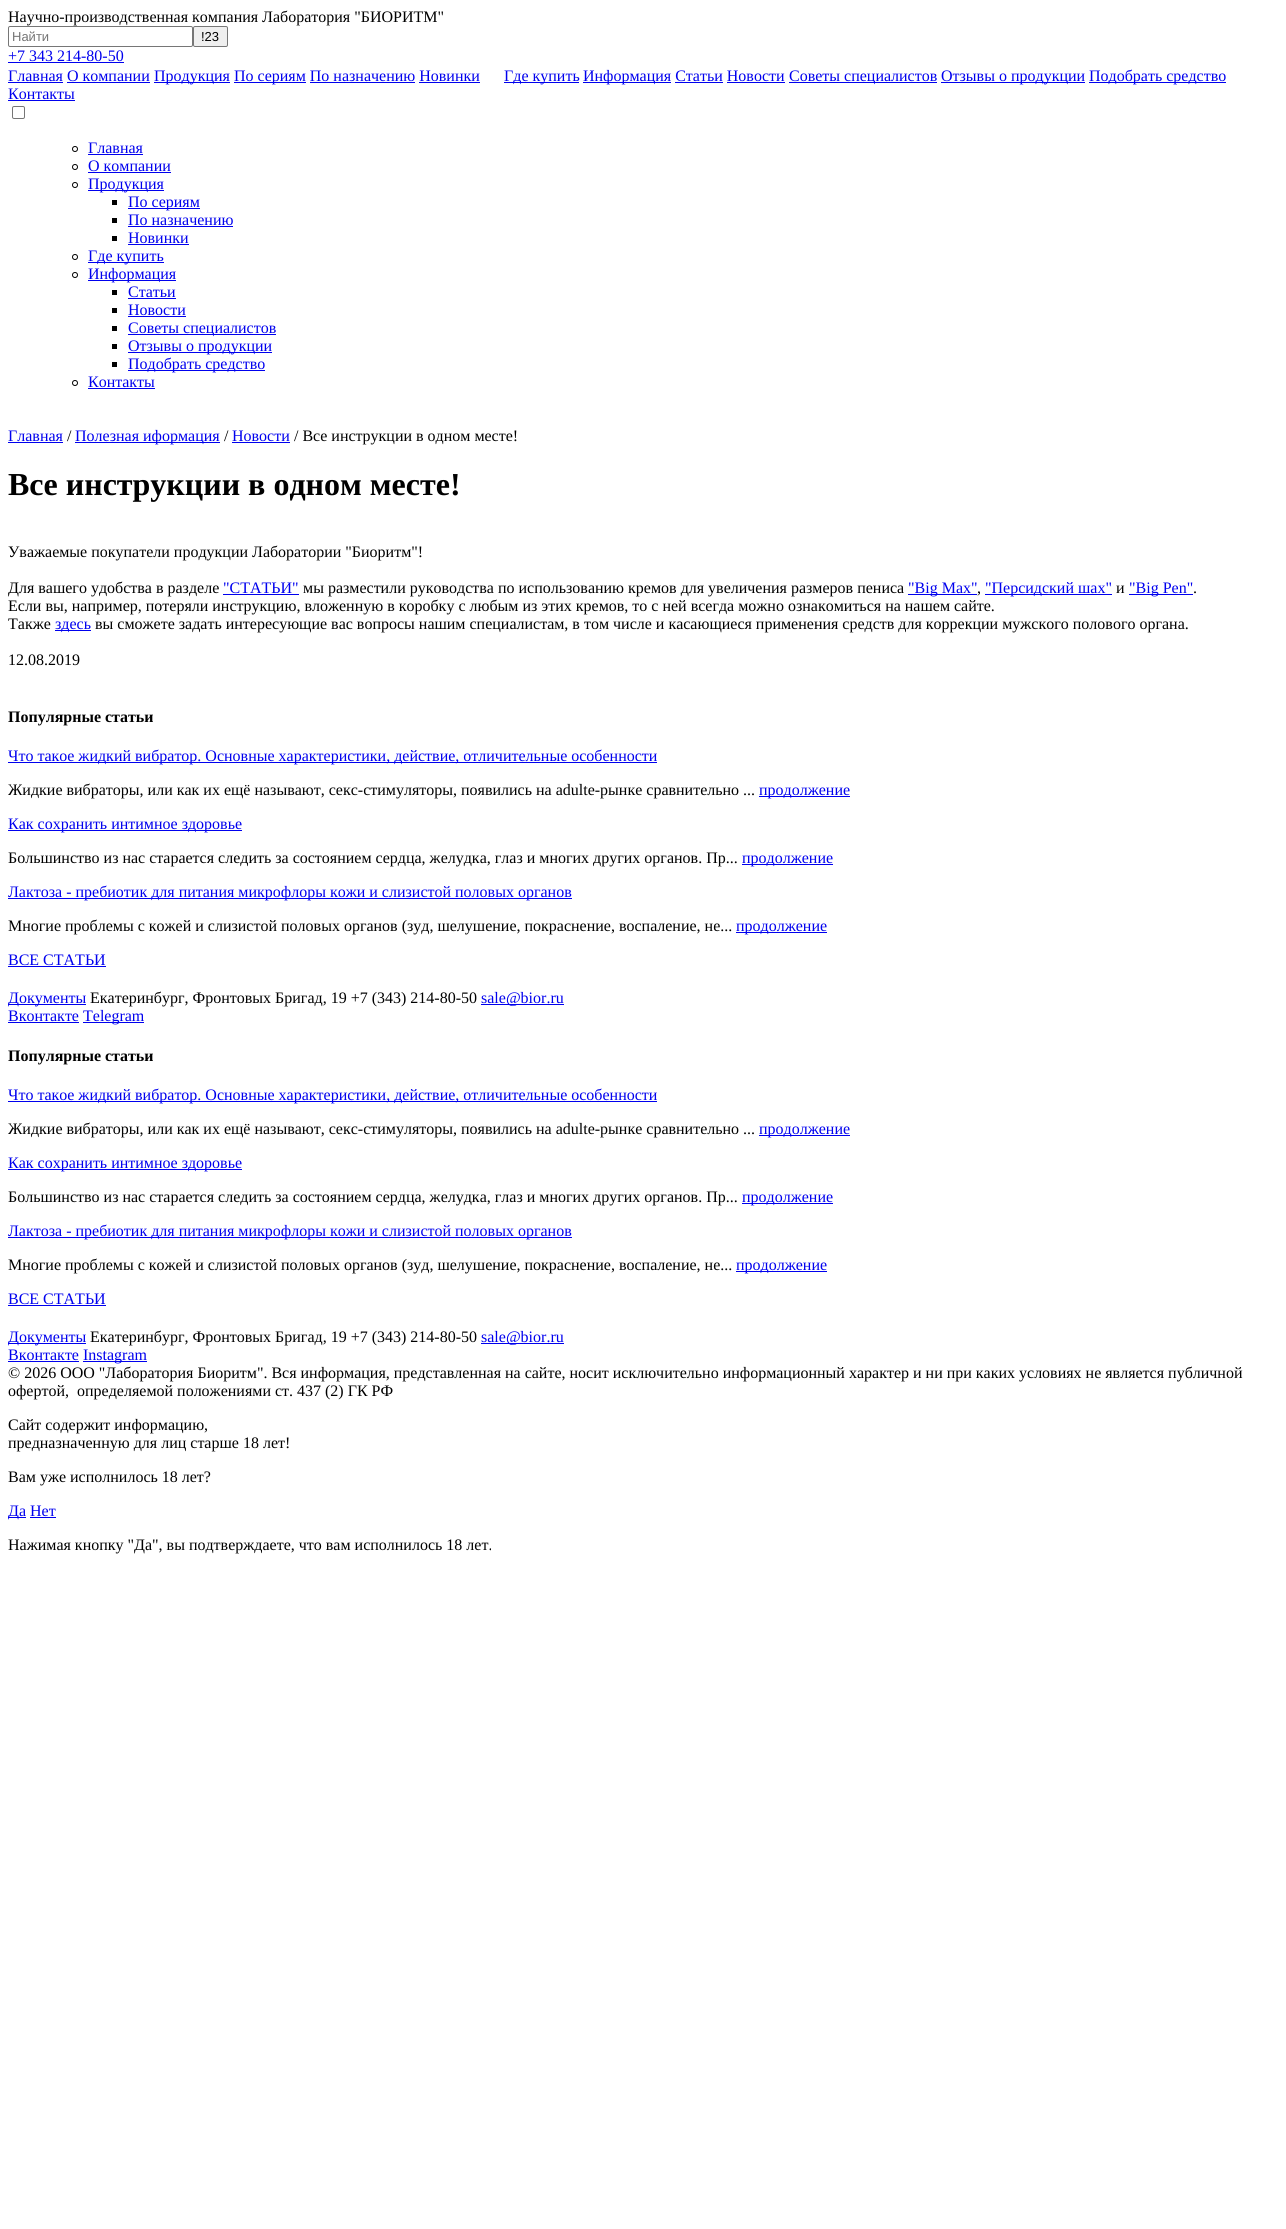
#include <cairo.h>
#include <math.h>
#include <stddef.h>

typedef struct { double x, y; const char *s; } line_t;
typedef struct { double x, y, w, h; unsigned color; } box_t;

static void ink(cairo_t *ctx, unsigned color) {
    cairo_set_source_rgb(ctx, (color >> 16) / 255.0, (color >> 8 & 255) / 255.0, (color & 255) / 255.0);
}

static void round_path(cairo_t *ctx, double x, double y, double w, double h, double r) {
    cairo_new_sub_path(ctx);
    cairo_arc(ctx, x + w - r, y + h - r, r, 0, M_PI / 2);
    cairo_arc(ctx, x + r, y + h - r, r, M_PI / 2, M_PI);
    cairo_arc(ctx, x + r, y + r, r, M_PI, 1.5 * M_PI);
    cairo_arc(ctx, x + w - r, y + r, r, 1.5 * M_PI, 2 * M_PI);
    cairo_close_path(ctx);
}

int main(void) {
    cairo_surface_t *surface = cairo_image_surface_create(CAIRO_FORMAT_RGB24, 1286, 2229);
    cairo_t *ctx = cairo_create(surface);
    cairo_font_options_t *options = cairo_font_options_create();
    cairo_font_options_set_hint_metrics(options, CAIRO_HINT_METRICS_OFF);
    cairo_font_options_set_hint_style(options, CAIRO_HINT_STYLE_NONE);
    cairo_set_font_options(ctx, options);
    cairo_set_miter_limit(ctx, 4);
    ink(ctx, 0xFFFFFF);
    cairo_paint(ctx);
    cairo_select_font_face(ctx, "Liberation Serif", CAIRO_FONT_SLANT_NORMAL, CAIRO_FONT_WEIGHT_NORMAL);
    cairo_set_font_size(ctx, 16);
    ink(ctx, 0x000000);
    cairo_move_to(ctx, 8, 22);
    cairo_show_text(ctx, "Научно-производственная компания Лаборатория \"БИОРИТМ\"");
    round_path(ctx, 8.5, 26.5, 184, 20, 1.5);
    ink(ctx, 0x767676);
    cairo_set_line_width(ctx, 1);
    cairo_stroke(ctx);
    cairo_select_font_face(ctx, "Liberation Sans", CAIRO_FONT_SLANT_NORMAL, CAIRO_FONT_WEIGHT_NORMAL);
    cairo_set_font_size(ctx, 13);
    ink(ctx, 0x757575);
    cairo_move_to(ctx, 12, 41);
    cairo_show_text(ctx, "Найти");
    ink(ctx, 0xEFEFEF);
    round_path(ctx, 193.5, 26.5, 34, 20, 1.5);
    cairo_fill_preserve(ctx);
    ink(ctx, 0x767676);
    cairo_stroke(ctx);
    ink(ctx, 0x000000);
    cairo_move_to(ctx, 201, 41);
    cairo_show_text(ctx, "!23");
    cairo_select_font_face(ctx, "Liberation Serif", CAIRO_FONT_SLANT_NORMAL, CAIRO_FONT_WEIGHT_NORMAL);
    cairo_set_font_size(ctx, 16);
    ink(ctx, 0x0000EE);
    cairo_move_to(ctx, 8, 61);
    cairo_show_text(ctx, "+7 343 214-80-50");
    cairo_rectangle(ctx, 8, 62, 116, 1);
    cairo_fill(ctx);
    cairo_move_to(ctx, 8, 81);
    cairo_show_text(ctx, "Главная О компании");
    cairo_rectangle(ctx, 8, 82, 55, 1);
    cairo_fill(ctx);
    cairo_rectangle(ctx, 154, 82, 76, 1);
    cairo_fill(ctx);
    cairo_move_to(ctx, 154, 81);
    cairo_show_text(ctx, "Продукция");
    cairo_rectangle(ctx, 234, 82, 72, 1);
    cairo_fill(ctx);
    cairo_move_to(ctx, 234, 81);
    cairo_show_text(ctx, "По сериям По назначению Новинки");
    {
        static const box_t items[] = {
            {310, 82, 105, 1, 0x0000EE},
            {419, 82, 61, 1, 0x0000EE},
            {504, 82, 75, 1, 0x0000EE},
        };
        for (size_t i = 0; i < sizeof items / sizeof *items; i++) {
            ink(ctx, items[i].color);
            cairo_rectangle(ctx, items[i].x, items[i].y, items[i].w, items[i].h);
            cairo_fill(ctx);
        }
    }
    cairo_move_to(ctx, 504, 81);
    cairo_show_text(ctx, "Где купить");
    cairo_rectangle(ctx, 583, 82, 88, 1);
    cairo_fill(ctx);
    cairo_move_to(ctx, 583, 81);
    cairo_show_text(ctx, "Информация Статьи Новости");
    {
        static const box_t items[] = {
            {675, 82, 48, 1, 0x0000EE},
            {727, 82, 58, 1, 0x0000EE},
            {789, 82, 148, 1, 0x0000EE},
        };
        for (size_t i = 0; i < sizeof items / sizeof *items; i++) {
            ink(ctx, items[i].color);
            cairo_rectangle(ctx, items[i].x, items[i].y, items[i].w, items[i].h);
            cairo_fill(ctx);
        }
    }
    cairo_move_to(ctx, 789, 81);
    cairo_show_text(ctx, "Советы специалистов");
    cairo_rectangle(ctx, 941, 82, 144, 1);
    cairo_fill(ctx);
    cairo_move_to(ctx, 941, 81);
    cairo_show_text(ctx, "Отзывы о продукции");
    cairo_rectangle(ctx, 1089, 82, 137, 1);
    cairo_fill(ctx);
    cairo_move_to(ctx, 1089, 81);
    cairo_show_text(ctx, "Подобрать средство");
    cairo_rectangle(ctx, 67, 82, 83, 1);
    cairo_fill(ctx);
    cairo_move_to(ctx, 8, 99);
    cairo_show_text(ctx, "Контакты");
    cairo_rectangle(ctx, 8, 100, 67, 1);
    cairo_fill(ctx);
    round_path(ctx, 12.5, 106.5, 12, 12, 1.5);
    ink(ctx, 0x767676);
    cairo_stroke(ctx);
    cairo_arc(ctx, 75, 149, 2.5, 0, 2 * M_PI);
    ink(ctx, 0x000000);
    cairo_stroke(ctx);
    ink(ctx, 0x0000EE);
    cairo_move_to(ctx, 88, 153);
    cairo_show_text(ctx, "Главная");
    cairo_rectangle(ctx, 88, 154, 55, 1);
    cairo_fill(ctx);
    cairo_arc(ctx, 75, 167, 2.5, 0, 2 * M_PI);
    ink(ctx, 0x000000);
    cairo_stroke(ctx);
    ink(ctx, 0x0000EE);
    cairo_move_to(ctx, 88, 171);
    cairo_show_text(ctx, "О компании");
    cairo_rectangle(ctx, 88, 172, 83, 1);
    cairo_fill(ctx);
    cairo_arc(ctx, 75, 185, 2.5, 0, 2 * M_PI);
    ink(ctx, 0x000000);
    cairo_stroke(ctx);
    ink(ctx, 0x0000EE);
    cairo_rectangle(ctx, 88, 190, 76, 1);
    cairo_fill(ctx);
    cairo_move_to(ctx, 88, 189);
    cairo_show_text(ctx, "Продукция");
    ink(ctx, 0x000000);
    cairo_rectangle(ctx, 112, 200, 5, 5);
    cairo_fill(ctx);
    ink(ctx, 0x0000EE);
    cairo_rectangle(ctx, 128, 208, 72, 1);
    cairo_fill(ctx);
    cairo_move_to(ctx, 128, 207);
    cairo_show_text(ctx, "По сериям");
    ink(ctx, 0x000000);
    cairo_rectangle(ctx, 112, 218, 5, 5);
    cairo_fill(ctx);
    ink(ctx, 0x0000EE);
    cairo_move_to(ctx, 128, 225);
    cairo_show_text(ctx, "По назначению");
    cairo_rectangle(ctx, 128, 226, 105, 1);
    cairo_fill(ctx);
    ink(ctx, 0x000000);
    cairo_rectangle(ctx, 112, 236, 5, 5);
    cairo_fill(ctx);
    ink(ctx, 0x0000EE);
    cairo_move_to(ctx, 128, 243);
    cairo_show_text(ctx, "Новинки");
    cairo_rectangle(ctx, 128, 244, 61, 1);
    cairo_fill(ctx);
    cairo_arc(ctx, 75, 257, 2.5, 0, 2 * M_PI);
    ink(ctx, 0x000000);
    cairo_stroke(ctx);
    ink(ctx, 0x0000EE);
    cairo_rectangle(ctx, 88, 262, 76, 1);
    cairo_fill(ctx);
    cairo_move_to(ctx, 88, 261);
    cairo_show_text(ctx, "Где купить");
    cairo_new_path(ctx);
    cairo_arc(ctx, 75, 275, 2.5, 0, 2 * M_PI);
    ink(ctx, 0x000000);
    cairo_stroke(ctx);
    ink(ctx, 0x0000EE);
    cairo_rectangle(ctx, 88, 280, 88, 1);
    cairo_fill(ctx);
    cairo_move_to(ctx, 88, 279);
    cairo_show_text(ctx, "Информация");
    ink(ctx, 0x000000);
    cairo_rectangle(ctx, 112, 290, 5, 5);
    cairo_fill(ctx);
    ink(ctx, 0x0000EE);
    cairo_move_to(ctx, 128, 297);
    cairo_show_text(ctx, "Статьи");
    cairo_rectangle(ctx, 128, 298, 48, 1);
    cairo_fill(ctx);
    ink(ctx, 0x000000);
    cairo_rectangle(ctx, 112, 308, 5, 5);
    cairo_fill(ctx);
    ink(ctx, 0x0000EE);
    cairo_move_to(ctx, 128, 315);
    cairo_show_text(ctx, "Новости");
    {
        static const box_t items[] = {
            {128, 316, 58, 1, 0x0000EE},
            {112, 326, 5, 5, 0x000000},
            {128, 334, 148, 1, 0x0000EE},
        };
        for (size_t i = 0; i < sizeof items / sizeof *items; i++) {
            ink(ctx, items[i].color);
            cairo_rectangle(ctx, items[i].x, items[i].y, items[i].w, items[i].h);
            cairo_fill(ctx);
        }
    }
    cairo_move_to(ctx, 128, 333);
    cairo_show_text(ctx, "Советы специалистов");
    ink(ctx, 0x000000);
    cairo_rectangle(ctx, 112, 344, 5, 5);
    cairo_fill(ctx);
    ink(ctx, 0x0000EE);
    cairo_rectangle(ctx, 128, 352, 144, 1);
    cairo_fill(ctx);
    cairo_move_to(ctx, 128, 351);
    cairo_show_text(ctx, "Отзывы о продукции");
    ink(ctx, 0x000000);
    cairo_rectangle(ctx, 112, 362, 5, 5);
    cairo_fill(ctx);
    ink(ctx, 0x0000EE);
    cairo_rectangle(ctx, 128, 370, 137, 1);
    cairo_fill(ctx);
    cairo_move_to(ctx, 128, 369);
    cairo_show_text(ctx, "Подобрать средство");
    cairo_new_path(ctx);
    cairo_arc(ctx, 75, 383, 2.5, 0, 2 * M_PI);
    ink(ctx, 0x000000);
    cairo_stroke(ctx);
    ink(ctx, 0x0000EE);
    cairo_move_to(ctx, 88, 387);
    cairo_show_text(ctx, "Контакты");
    cairo_rectangle(ctx, 88, 388, 67, 1);
    cairo_fill(ctx);
    cairo_move_to(ctx, 8, 441);
    cairo_show_text(ctx, "Главная");
    cairo_rectangle(ctx, 8, 442, 55, 1);
    cairo_fill(ctx);
    ink(ctx, 0x000000);
    cairo_move_to(ctx, 67, 441);
    cairo_show_text(ctx, "/");
    ink(ctx, 0x0000EE);
    cairo_rectangle(ctx, 75, 442, 145, 1);
    cairo_fill(ctx);
    cairo_move_to(ctx, 75, 441);
    cairo_show_text(ctx, "Полезная иформация");
    ink(ctx, 0x000000);
    cairo_move_to(ctx, 224, 441);
    cairo_show_text(ctx, "/");
    ink(ctx, 0x0000EE);
    cairo_move_to(ctx, 232, 441);
    cairo_show_text(ctx, "Новости");
    cairo_rectangle(ctx, 232, 442, 58, 1);
    cairo_fill(ctx);
    ink(ctx, 0x000000);
    cairo_move_to(ctx, 294, 441);
    cairo_show_text(ctx, "/ Все инструкции в одном месте!");
    cairo_select_font_face(ctx, "Liberation Serif", CAIRO_FONT_SLANT_NORMAL, CAIRO_FONT_WEIGHT_BOLD);
    cairo_set_font_size(ctx, 32);
    cairo_move_to(ctx, 8, 495);
    cairo_show_text(ctx, "Все инструкции в одном месте!");
    cairo_select_font_face(ctx, "Liberation Serif", CAIRO_FONT_SLANT_NORMAL, CAIRO_FONT_WEIGHT_NORMAL);
    cairo_set_font_size(ctx, 16);
    cairo_move_to(ctx, 8, 557);
    cairo_show_text(ctx, "Уважаемые покупатели продукции Лаборатории \"Биоритм\"!");
    cairo_move_to(ctx, 8, 593);
    cairo_show_text(ctx, "Для вашего удобства в разделе");
    ink(ctx, 0x0000EE);
    cairo_move_to(ctx, 223, 593);
    cairo_show_text(ctx, "\"СТАТЬИ\"");
    cairo_rectangle(ctx, 223, 594, 76, 1);
    cairo_fill(ctx);
    ink(ctx, 0x000000);
    cairo_move_to(ctx, 303, 593);
    cairo_show_text(ctx, "мы разместили руководства по использованию кремов для увеличения размеров пениса");
    ink(ctx, 0x0000EE);
    cairo_rectangle(ctx, 908, 594, 69, 1);
    cairo_fill(ctx);
    cairo_move_to(ctx, 908, 593);
    cairo_show_text(ctx, "\"Big Max\"");
    cairo_rectangle(ctx, 985, 594, 127, 1);
    cairo_fill(ctx);
    cairo_move_to(ctx, 985, 593);
    cairo_show_text(ctx, "\"Персидский шах\"");
    ink(ctx, 0x000000);
    cairo_move_to(ctx, 1116, 593);
    cairo_show_text(ctx, "и");
    ink(ctx, 0x0000EE);
    cairo_rectangle(ctx, 1129, 594, 64, 1);
    cairo_fill(ctx);
    cairo_move_to(ctx, 1129, 593);
    cairo_show_text(ctx, "\"Big Pen\"");
    ink(ctx, 0x000000);
    {
        static const line_t items[] = {
            {977, 593, ","},
            {1193, 593, "."},
            {8, 611, "Если вы, например, потеряли инструкцию, вложенную в коробку с любым из этих кремов, то с ней всегда можно ознакомиться на нашем сайте."},
            {8, 629, "Также"},
        };
        for (size_t i = 0; i < sizeof items / sizeof *items; i++) {
            cairo_move_to(ctx, items[i].x, items[i].y);
            cairo_show_text(ctx, items[i].s);
        }
    }
    ink(ctx, 0x0000EE);
    cairo_rectangle(ctx, 55, 630, 36, 1);
    cairo_fill(ctx);
    cairo_move_to(ctx, 55, 629);
    cairo_show_text(ctx, "здесь");
    ink(ctx, 0x000000);
    cairo_move_to(ctx, 95, 629);
    cairo_show_text(ctx, "вы сможете задать интересующие вас вопросы нашим специалистам, в том числе и касающиеся применения средств для коррекции мужского полового органа.");
    cairo_move_to(ctx, 8, 665);
    cairo_show_text(ctx, "12.08.2019");
    cairo_select_font_face(ctx, "Liberation Serif", CAIRO_FONT_SLANT_NORMAL, CAIRO_FONT_WEIGHT_BOLD);
    cairo_move_to(ctx, 8, 722);
    cairo_show_text(ctx, "Популярные статьи");
    ink(ctx, 0x0000EE);
    cairo_rectangle(ctx, 8, 762, 649, 1);
    cairo_fill(ctx);
    cairo_select_font_face(ctx, "Liberation Serif", CAIRO_FONT_SLANT_NORMAL, CAIRO_FONT_WEIGHT_NORMAL);
    cairo_move_to(ctx, 8, 761);
    cairo_show_text(ctx, "Что такое жидкий вибратор. Основные характеристики, действие, отличительные особенности");
    ink(ctx, 0x000000);
    cairo_move_to(ctx, 8, 795);
    cairo_show_text(ctx, "Жидкие вибраторы, или как их ещё называют, секс-стимуляторы, появились на adulte-рынке сравнительно ...");
    ink(ctx, 0x0000EE);
    cairo_rectangle(ctx, 759, 796, 91, 1);
    cairo_fill(ctx);
    cairo_move_to(ctx, 759, 795);
    cairo_show_text(ctx, "продолжение");
    cairo_rectangle(ctx, 8, 830, 234, 1);
    cairo_fill(ctx);
    cairo_move_to(ctx, 8, 829);
    cairo_show_text(ctx, "Как сохранить интимное здоровье");
    ink(ctx, 0x000000);
    cairo_move_to(ctx, 8, 863);
    cairo_show_text(ctx, "Большинство из нас старается следить за состоянием сердца, желудка, глаз и многих других органов. Пр...");
    ink(ctx, 0x0000EE);
    cairo_rectangle(ctx, 742, 864, 91, 1);
    cairo_fill(ctx);
    cairo_move_to(ctx, 742, 863);
    cairo_show_text(ctx, "продолжение");
    cairo_rectangle(ctx, 8, 898, 564, 1);
    cairo_fill(ctx);
    cairo_move_to(ctx, 8, 897);
    cairo_show_text(ctx, "Лактоза - пребиотик для питания микрофлоры кожи и слизистой половых органов");
    ink(ctx, 0x000000);
    cairo_move_to(ctx, 8, 931);
    cairo_show_text(ctx, "Многие проблемы с кожей и слизистой половых органов (зуд, шелушение, покраснение, воспаление, не...");
    ink(ctx, 0x0000EE);
    cairo_rectangle(ctx, 736, 932, 91, 1);
    cairo_fill(ctx);
    cairo_move_to(ctx, 736, 931);
    cairo_show_text(ctx, "продолжение");
    cairo_move_to(ctx, 8, 965);
    cairo_show_text(ctx, "ВСЕ СТАТЬИ");
    cairo_rectangle(ctx, 8, 966, 98, 1);
    cairo_fill(ctx);
    cairo_rectangle(ctx, 8, 1004, 78, 1);
    cairo_fill(ctx);
    cairo_move_to(ctx, 8, 1003);
    cairo_show_text(ctx, "Документы");
    ink(ctx, 0x000000);
    cairo_move_to(ctx, 90, 1003);
    cairo_show_text(ctx, "Екатеринбург, Фронтовых Бригад, 19 +7 (343) 214-80-50");
    ink(ctx, 0x0000EE);
    cairo_rectangle(ctx, 481, 1004, 83, 1);
    cairo_fill(ctx);
    cairo_move_to(ctx, 481, 1003);
    cairo_show_text(ctx, "sale@bior.ru");
    cairo_move_to(ctx, 8, 1021);
    cairo_show_text(ctx, "Вконтакте");
    cairo_rectangle(ctx, 8, 1022, 71, 1);
    cairo_fill(ctx);
    cairo_rectangle(ctx, 83, 1022, 61, 1);
    cairo_fill(ctx);
    cairo_move_to(ctx, 83, 1021);
    cairo_show_text(ctx, "Telegram");
    cairo_select_font_face(ctx, "Liberation Serif", CAIRO_FONT_SLANT_NORMAL, CAIRO_FONT_WEIGHT_BOLD);
    ink(ctx, 0x000000);
    cairo_move_to(ctx, 8, 1061);
    cairo_show_text(ctx, "Популярные статьи");
    ink(ctx, 0x0000EE);
    cairo_rectangle(ctx, 8, 1101, 649, 1);
    cairo_fill(ctx);
    cairo_select_font_face(ctx, "Liberation Serif", CAIRO_FONT_SLANT_NORMAL, CAIRO_FONT_WEIGHT_NORMAL);
    cairo_move_to(ctx, 8, 1100);
    cairo_show_text(ctx, "Что такое жидкий вибратор. Основные характеристики, действие, отличительные особенности");
    ink(ctx, 0x000000);
    cairo_move_to(ctx, 8, 1134);
    cairo_show_text(ctx, "Жидкие вибраторы, или как их ещё называют, секс-стимуляторы, появились на adulte-рынке сравнительно ...");
    ink(ctx, 0x0000EE);
    cairo_rectangle(ctx, 759, 1135, 91, 1);
    cairo_fill(ctx);
    cairo_move_to(ctx, 759, 1134);
    cairo_show_text(ctx, "продолжение");
    cairo_rectangle(ctx, 8, 1169, 234, 1);
    cairo_fill(ctx);
    cairo_move_to(ctx, 8, 1168);
    cairo_show_text(ctx, "Как сохранить интимное здоровье");
    ink(ctx, 0x000000);
    cairo_move_to(ctx, 8, 1202);
    cairo_show_text(ctx, "Большинство из нас старается следить за состоянием сердца, желудка, глаз и многих других органов. Пр...");
    ink(ctx, 0x0000EE);
    cairo_rectangle(ctx, 742, 1203, 91, 1);
    cairo_fill(ctx);
    cairo_move_to(ctx, 742, 1202);
    cairo_show_text(ctx, "продолжение");
    cairo_rectangle(ctx, 8, 1237, 564, 1);
    cairo_fill(ctx);
    cairo_move_to(ctx, 8, 1236);
    cairo_show_text(ctx, "Лактоза - пребиотик для питания микрофлоры кожи и слизистой половых органов");
    ink(ctx, 0x000000);
    cairo_move_to(ctx, 8, 1270);
    cairo_show_text(ctx, "Многие проблемы с кожей и слизистой половых органов (зуд, шелушение, покраснение, воспаление, не...");
    ink(ctx, 0x0000EE);
    cairo_rectangle(ctx, 736, 1271, 91, 1);
    cairo_fill(ctx);
    cairo_move_to(ctx, 736, 1270);
    cairo_show_text(ctx, "продолжение");
    cairo_move_to(ctx, 8, 1304);
    cairo_show_text(ctx, "ВСЕ СТАТЬИ");
    cairo_rectangle(ctx, 8, 1305, 98, 1);
    cairo_fill(ctx);
    cairo_rectangle(ctx, 8, 1343, 78, 1);
    cairo_fill(ctx);
    cairo_move_to(ctx, 8, 1342);
    cairo_show_text(ctx, "Документы");
    ink(ctx, 0x000000);
    cairo_move_to(ctx, 90, 1342);
    cairo_show_text(ctx, "Екатеринбург, Фронтовых Бригад, 19 +7 (343) 214-80-50");
    ink(ctx, 0x0000EE);
    cairo_rectangle(ctx, 481, 1343, 83, 1);
    cairo_fill(ctx);
    cairo_move_to(ctx, 481, 1342);
    cairo_show_text(ctx, "sale@bior.ru");
    cairo_move_to(ctx, 8, 1360);
    cairo_show_text(ctx, "Вконтакте");
    cairo_rectangle(ctx, 8, 1361, 71, 1);
    cairo_fill(ctx);
    cairo_rectangle(ctx, 83, 1361, 64, 1);
    cairo_fill(ctx);
    cairo_move_to(ctx, 83, 1360);
    cairo_show_text(ctx, "Instagram");
    ink(ctx, 0x000000);
    {
        static const line_t items[] = {
            {8, 1378, "© 2026 ООО \"Лаборатория Биоритм\". Вся информация, представленная на сайте, носит исключительно информационный характер и ни при каких условиях не является публичной"},
            {8, 1396, "офертой,  определяемой положениями ст. 437 (2) ГК РФ"},
            {8, 1430, "Сайт содержит информацию,"},
            {8, 1448, "предназначенную для лиц старше 18 лет!"},
            {8, 1482, "Вам уже исполнилось 18 лет?"},
        };
        for (size_t i = 0; i < sizeof items / sizeof *items; i++) {
            cairo_move_to(ctx, items[i].x, items[i].y);
            cairo_show_text(ctx, items[i].s);
        }
    }
    ink(ctx, 0x0000EE);
    cairo_rectangle(ctx, 8, 1517, 18, 1);
    cairo_fill(ctx);
    cairo_move_to(ctx, 8, 1516);
    cairo_show_text(ctx, "Да Нет");
    cairo_rectangle(ctx, 30, 1517, 26, 1);
    cairo_fill(ctx);
    ink(ctx, 0x000000);
    cairo_move_to(ctx, 8, 1550);
    cairo_show_text(ctx, "Нажимая кнопку \"Да\", вы подтверждаете, что вам исполнилось 18 лет.");
    cairo_surface_write_to_png(surface, "image.png");
    cairo_font_options_destroy(options);
    cairo_destroy(ctx);
    cairo_surface_destroy(surface);
    return 0;
}
